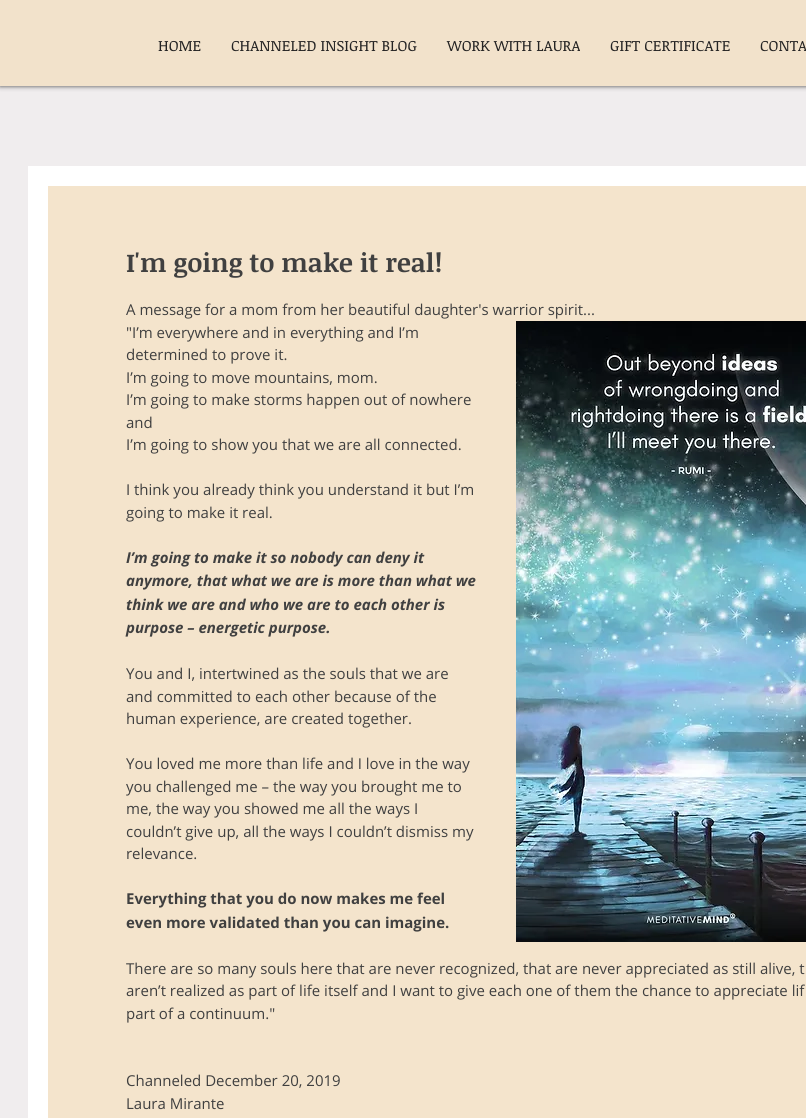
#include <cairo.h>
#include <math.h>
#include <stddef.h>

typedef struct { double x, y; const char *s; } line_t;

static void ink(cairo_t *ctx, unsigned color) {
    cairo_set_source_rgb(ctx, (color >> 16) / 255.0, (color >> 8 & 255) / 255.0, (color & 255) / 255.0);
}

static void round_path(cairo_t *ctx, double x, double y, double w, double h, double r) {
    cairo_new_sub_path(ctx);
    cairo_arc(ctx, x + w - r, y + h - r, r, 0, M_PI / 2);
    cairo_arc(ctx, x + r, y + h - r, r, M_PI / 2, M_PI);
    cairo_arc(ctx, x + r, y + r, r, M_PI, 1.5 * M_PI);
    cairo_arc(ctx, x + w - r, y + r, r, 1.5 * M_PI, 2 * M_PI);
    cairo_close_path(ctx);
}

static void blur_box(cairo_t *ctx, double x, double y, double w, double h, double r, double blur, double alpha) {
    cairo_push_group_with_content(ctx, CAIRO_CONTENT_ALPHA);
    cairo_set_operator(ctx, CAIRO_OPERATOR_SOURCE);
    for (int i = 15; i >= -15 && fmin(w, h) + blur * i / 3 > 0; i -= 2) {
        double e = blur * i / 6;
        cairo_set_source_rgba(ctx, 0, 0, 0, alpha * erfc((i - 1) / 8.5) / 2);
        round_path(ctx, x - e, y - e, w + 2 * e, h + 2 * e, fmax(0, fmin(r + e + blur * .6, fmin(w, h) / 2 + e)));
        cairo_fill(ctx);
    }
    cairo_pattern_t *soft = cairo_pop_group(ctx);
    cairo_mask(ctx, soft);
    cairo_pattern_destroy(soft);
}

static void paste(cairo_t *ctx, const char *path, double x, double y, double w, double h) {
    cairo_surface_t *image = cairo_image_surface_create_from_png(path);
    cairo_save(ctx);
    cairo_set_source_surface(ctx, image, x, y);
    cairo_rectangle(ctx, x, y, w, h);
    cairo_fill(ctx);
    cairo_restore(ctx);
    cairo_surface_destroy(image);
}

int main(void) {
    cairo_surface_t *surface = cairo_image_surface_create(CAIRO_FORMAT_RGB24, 806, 1118);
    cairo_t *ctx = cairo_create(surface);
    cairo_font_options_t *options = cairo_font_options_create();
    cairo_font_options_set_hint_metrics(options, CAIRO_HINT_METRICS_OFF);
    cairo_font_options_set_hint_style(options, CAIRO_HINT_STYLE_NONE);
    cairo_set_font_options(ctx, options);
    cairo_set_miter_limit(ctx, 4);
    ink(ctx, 0xF0EDEE);
    cairo_paint(ctx);
    ink(ctx, 0x000000);
    blur_box(ctx, 0, 0, 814, 86, 0, 2.5, 0.7);
    ink(ctx, 0xF2E2CB);
    cairo_rectangle(ctx, 0, 0, 806, 86);
    cairo_fill(ctx);
    cairo_select_font_face(ctx, "Noticia Text", CAIRO_FONT_SLANT_NORMAL, CAIRO_FONT_WEIGHT_NORMAL);
    cairo_set_font_size(ctx, 15);
    ink(ctx, 0x242323);
    {
        static const line_t items[] = {
            {158, 51, "HOME"},
            {231, 51, "CHANNELED INSIGHT BLOG"},
            {447, 51, "WORK WITH LAURA"},
            {610, 51, "GIFT CERTIFICATE"},
            {760, 51, "CONTA"},
        };
        for (size_t i = 0; i < sizeof items / sizeof *items; i++) {
            cairo_move_to(ctx, items[i].x, items[i].y);
            cairo_show_text(ctx, items[i].s);
        }
    }
    ink(ctx, 0xFFFFFF);
    cairo_rectangle(ctx, 28, 166, 778, 952);
    cairo_fill(ctx);
    ink(ctx, 0xF4E4CC);
    cairo_rectangle(ctx, 48, 186, 758, 932);
    cairo_fill(ctx);
    cairo_select_font_face(ctx, "Noticia Text", CAIRO_FONT_SLANT_NORMAL, CAIRO_FONT_WEIGHT_BOLD);
    cairo_set_font_size(ctx, 26);
    ink(ctx, 0x404040);
    cairo_move_to(ctx, 126, 272);
    cairo_show_text(ctx, "I'm going to make it real!");
    cairo_select_font_face(ctx, "Open Sans", CAIRO_FONT_SLANT_NORMAL, CAIRO_FONT_WEIGHT_NORMAL);
    cairo_set_font_size(ctx, 15);
    {
        static const line_t items[] = {
            {126, 315, "A message for a mom from her beautiful daughter's warrior spirit..."},
            {126, 338, "\"I’m everywhere and in everything and I’m"},
            {126, 360, "determined to prove it."},
            {126, 383, "I’m going to move mountains, mom."},
            {126, 405, "I’m going to make storms happen out of nowhere"},
            {126, 428, "and"},
        };
        for (size_t i = 0; i < sizeof items / sizeof *items; i++) {
            cairo_move_to(ctx, items[i].x, items[i].y);
            cairo_show_text(ctx, items[i].s);
        }
    }
    paste(ctx, "media/1.png", 516, 321, 290, 621);
    {
        static const line_t items[] = {
            {126, 450, "I’m going to show you that we are all connected."},
            {126, 495, "I think you already think you understand it but I’m"},
            {126, 518, "going to make it real."},
        };
        for (size_t i = 0; i < sizeof items / sizeof *items; i++) {
            cairo_move_to(ctx, items[i].x, items[i].y);
            cairo_show_text(ctx, items[i].s);
        }
    }
    cairo_select_font_face(ctx, "Open Sans", CAIRO_FONT_SLANT_ITALIC, CAIRO_FONT_WEIGHT_BOLD);
    {
        static const line_t items[] = {
            {126, 563, "I’m going to make it so nobody can deny it"},
            {126, 586, "anymore, that what we are is more than what we"},
            {126, 610, "think we are and who we are to each other is"},
            {126, 633, "purpose – energetic purpose."},
        };
        for (size_t i = 0; i < sizeof items / sizeof *items; i++) {
            cairo_move_to(ctx, items[i].x, items[i].y);
            cairo_show_text(ctx, items[i].s);
        }
    }
    cairo_select_font_face(ctx, "Open Sans", CAIRO_FONT_SLANT_NORMAL, CAIRO_FONT_WEIGHT_NORMAL);
    {
        static const line_t items[] = {
            {126, 679, "You and I, intertwined as the souls that we are"},
            {126, 702, "and committed to each other because of the"},
            {126, 724, "human experience, are created together."},
            {126, 769, "You loved me more than life and I love in the way"},
            {126, 792, "you challenged me – the way you brought me to"},
            {126, 814, "me, the way you showed me all the ways I"},
            {126, 837, "couldn’t give up, all the ways I couldn’t dismiss my"},
            {126, 859, "relevance."},
        };
        for (size_t i = 0; i < sizeof items / sizeof *items; i++) {
            cairo_move_to(ctx, items[i].x, items[i].y);
            cairo_show_text(ctx, items[i].s);
        }
    }
    cairo_select_font_face(ctx, "Open Sans", CAIRO_FONT_SLANT_NORMAL, CAIRO_FONT_WEIGHT_BOLD);
    cairo_move_to(ctx, 126, 904);
    cairo_show_text(ctx, "Everything that you do now makes me feel");
    cairo_move_to(ctx, 126, 928);
    cairo_show_text(ctx, "even more validated than you can imagine.");
    cairo_select_font_face(ctx, "Open Sans", CAIRO_FONT_SLANT_NORMAL, CAIRO_FONT_WEIGHT_NORMAL);
    {
        static const line_t items[] = {
            {126, 974, "There are so many souls here that are never recognized, that are never appreciated as still alive, t"},
            {126, 996, "aren’t realized as part of life itself and I want to give each one of them the chance to appreciate lif"},
            {126, 1019, "part of a continuum.\""},
            {126, 1086, "Channeled December 20, 2019"},
            {126, 1109, "Laura Mirante"},
        };
        for (size_t i = 0; i < sizeof items / sizeof *items; i++) {
            cairo_move_to(ctx, items[i].x, items[i].y);
            cairo_show_text(ctx, items[i].s);
        }
    }
    cairo_surface_write_to_png(surface, "image.png");
    cairo_font_options_destroy(options);
    cairo_destroy(ctx);
    cairo_surface_destroy(surface);
    return 0;
}
